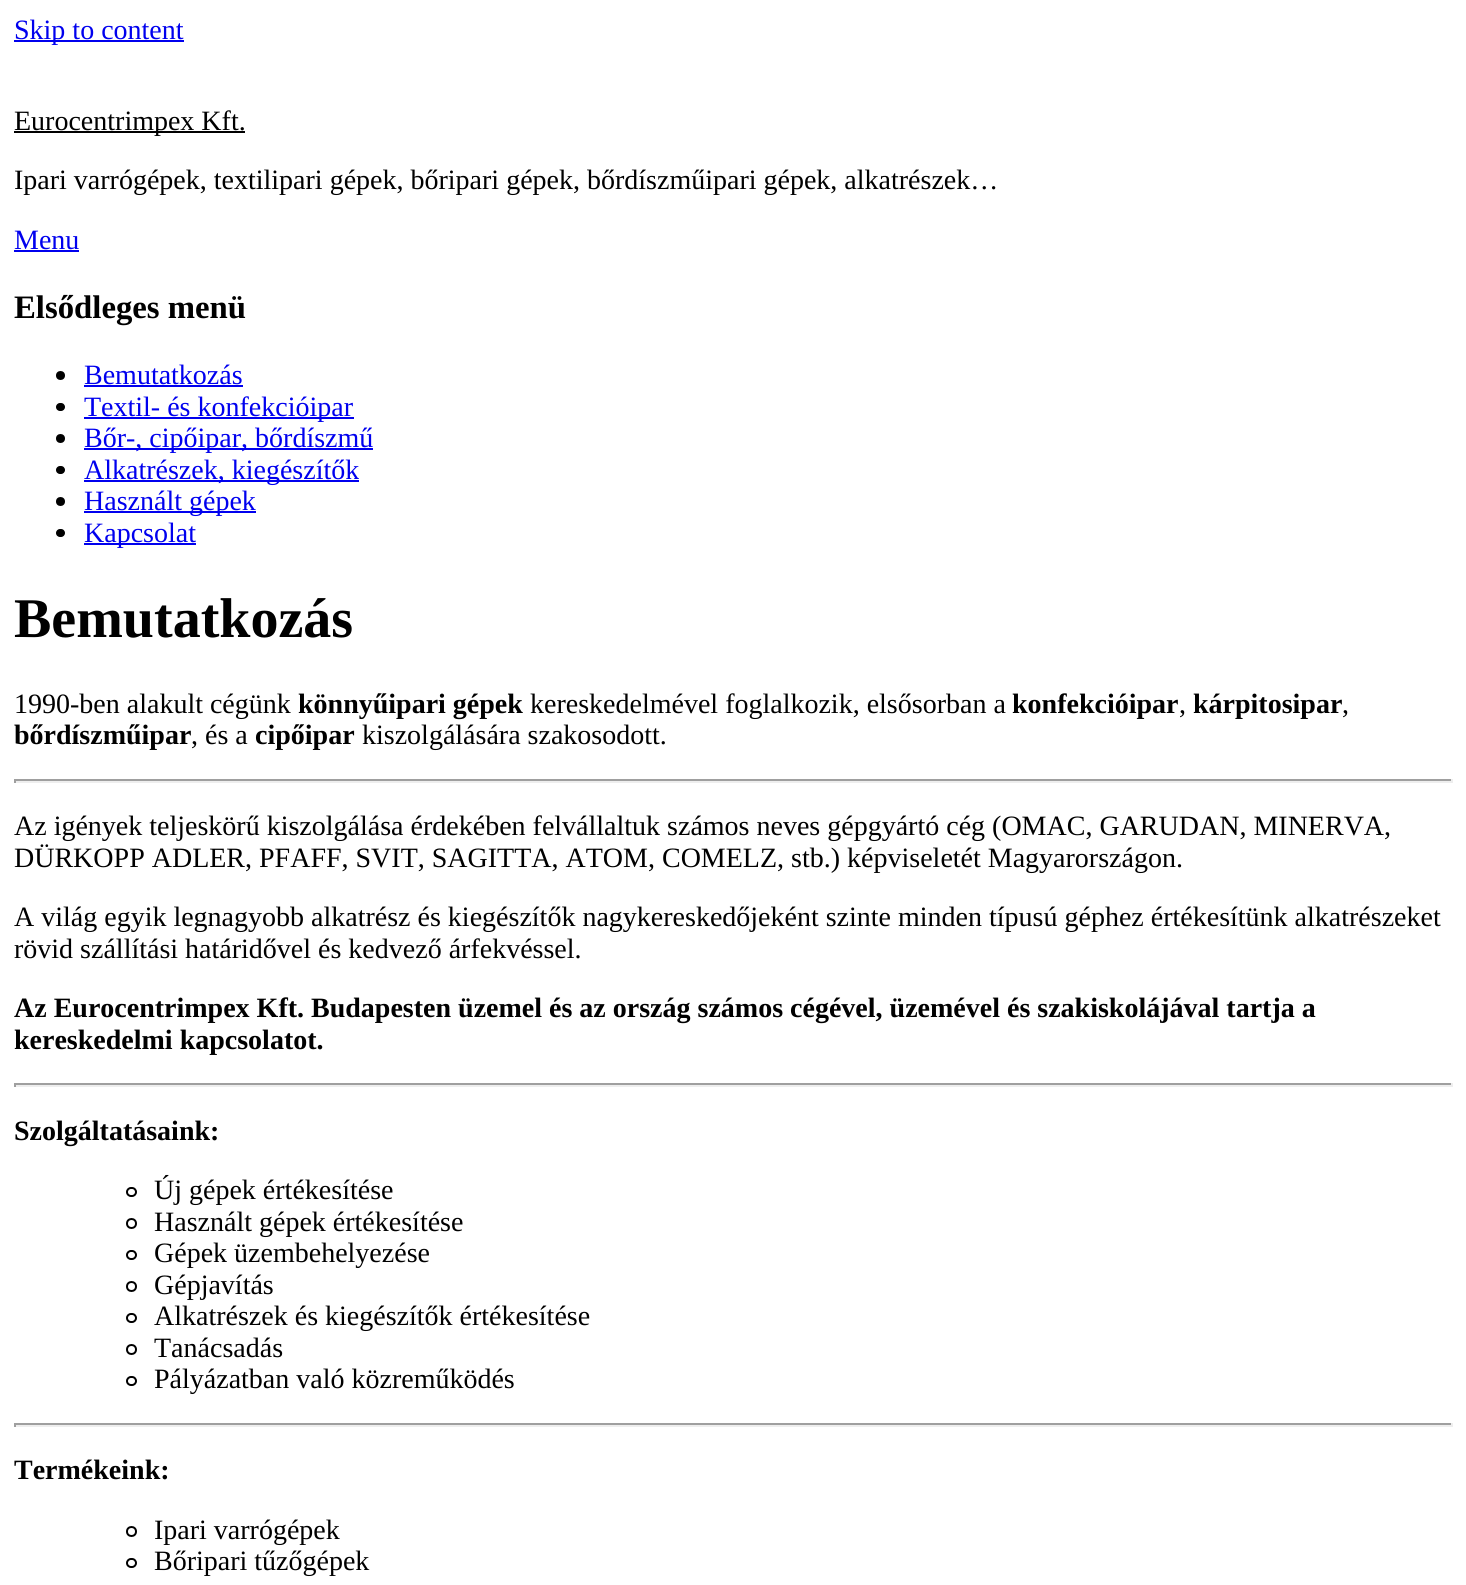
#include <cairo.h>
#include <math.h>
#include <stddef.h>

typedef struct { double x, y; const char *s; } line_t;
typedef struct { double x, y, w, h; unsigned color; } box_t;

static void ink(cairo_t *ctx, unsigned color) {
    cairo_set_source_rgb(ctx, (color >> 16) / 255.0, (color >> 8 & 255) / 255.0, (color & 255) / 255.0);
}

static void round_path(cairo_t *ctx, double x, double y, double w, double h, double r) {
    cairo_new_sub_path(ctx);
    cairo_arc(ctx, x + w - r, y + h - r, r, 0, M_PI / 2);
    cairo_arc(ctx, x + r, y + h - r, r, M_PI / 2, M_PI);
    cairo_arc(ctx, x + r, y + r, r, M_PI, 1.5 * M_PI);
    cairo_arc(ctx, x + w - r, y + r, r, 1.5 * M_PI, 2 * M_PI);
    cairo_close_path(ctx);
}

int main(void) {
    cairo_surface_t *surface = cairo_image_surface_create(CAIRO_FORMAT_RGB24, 1466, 1585);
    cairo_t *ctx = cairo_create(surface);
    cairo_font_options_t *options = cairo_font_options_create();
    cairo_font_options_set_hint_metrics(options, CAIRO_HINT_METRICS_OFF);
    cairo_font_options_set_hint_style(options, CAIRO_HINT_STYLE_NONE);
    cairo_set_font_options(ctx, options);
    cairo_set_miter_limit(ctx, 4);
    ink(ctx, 0xFFFFFF);
    cairo_paint(ctx);
    ink(ctx, 0x0000EE);
    cairo_rectangle(ctx, 14, 40, 170, 2);
    cairo_fill(ctx);
    cairo_select_font_face(ctx, "Liberation Serif", CAIRO_FONT_SLANT_NORMAL, CAIRO_FONT_WEIGHT_NORMAL);
    cairo_set_font_size(ctx, 28);
    cairo_move_to(ctx, 14, 39);
    cairo_show_text(ctx, "Skip to content");
    ink(ctx, 0x000000);
    cairo_rectangle(ctx, 14, 131, 231, 2);
    cairo_fill(ctx);
    cairo_move_to(ctx, 14, 130);
    cairo_show_text(ctx, "Eurocentrimpex Kft.");
    cairo_move_to(ctx, 14, 189);
    cairo_show_text(ctx, "Ipari varrógépek, textilipari gépek, bőripari gépek, bőrdíszműipari gépek, alkatrészek…");
    ink(ctx, 0x0000EE);
    cairo_move_to(ctx, 14, 249);
    cairo_show_text(ctx, "Menu");
    cairo_rectangle(ctx, 14, 250, 65, 2);
    cairo_fill(ctx);
    cairo_select_font_face(ctx, "Liberation Serif", CAIRO_FONT_SLANT_NORMAL, CAIRO_FONT_WEIGHT_BOLD);
    cairo_set_font_size(ctx, 32.75);
    ink(ctx, 0x000000);
    cairo_move_to(ctx, 14, 318);
    cairo_show_text(ctx, "Elsődleges menü");
    cairo_new_path(ctx);
    cairo_arc(ctx, 60.5, 375.5, 4.5, 0, 2 * M_PI);
    cairo_fill(ctx);
    cairo_select_font_face(ctx, "Liberation Serif", CAIRO_FONT_SLANT_NORMAL, CAIRO_FONT_WEIGHT_NORMAL);
    cairo_set_font_size(ctx, 28);
    ink(ctx, 0x0000EE);
    cairo_move_to(ctx, 84, 384);
    cairo_show_text(ctx, "Bemutatkozás");
    cairo_rectangle(ctx, 84, 385, 159, 2);
    cairo_fill(ctx);
    ink(ctx, 0x000000);
    round_path(ctx, 56, 403, 9, 8, 4);
    cairo_fill(ctx);
    ink(ctx, 0x0000EE);
    cairo_rectangle(ctx, 84, 417, 270, 2);
    cairo_fill(ctx);
    cairo_move_to(ctx, 84, 416);
    cairo_show_text(ctx, "Textil- és konfekcióipar");
    ink(ctx, 0x000000);
    cairo_new_path(ctx);
    cairo_arc(ctx, 60.5, 438.5, 4.5, 0, 2 * M_PI);
    cairo_fill(ctx);
    ink(ctx, 0x0000EE);
    cairo_rectangle(ctx, 84, 448, 289, 2);
    cairo_fill(ctx);
    cairo_move_to(ctx, 84, 447);
    cairo_show_text(ctx, "Bőr-, cipőipar, bőrdíszmű");
    ink(ctx, 0x000000);
    round_path(ctx, 56, 466, 9, 8, 4);
    cairo_fill(ctx);
    ink(ctx, 0x0000EE);
    cairo_rectangle(ctx, 84, 480, 275, 2);
    cairo_fill(ctx);
    cairo_move_to(ctx, 84, 479);
    cairo_show_text(ctx, "Alkatrészek, kiegészítők");
    ink(ctx, 0x000000);
    cairo_new_path(ctx);
    cairo_arc(ctx, 60.5, 501.5, 4.5, 0, 2 * M_PI);
    cairo_fill(ctx);
    ink(ctx, 0x0000EE);
    cairo_rectangle(ctx, 84, 511, 172, 2);
    cairo_fill(ctx);
    cairo_move_to(ctx, 84, 510);
    cairo_show_text(ctx, "Használt gépek");
    ink(ctx, 0x000000);
    round_path(ctx, 56, 529, 9, 8, 4);
    cairo_fill(ctx);
    ink(ctx, 0x0000EE);
    cairo_rectangle(ctx, 84, 543, 112, 2);
    cairo_fill(ctx);
    cairo_move_to(ctx, 84, 542);
    cairo_show_text(ctx, "Kapcsolat");
    cairo_select_font_face(ctx, "Liberation Serif", CAIRO_FONT_SLANT_NORMAL, CAIRO_FONT_WEIGHT_BOLD);
    cairo_set_font_size(ctx, 56);
    ink(ctx, 0x000000);
    cairo_move_to(ctx, 14, 637);
    cairo_show_text(ctx, "Bemutatkozás");
    cairo_select_font_face(ctx, "Liberation Serif", CAIRO_FONT_SLANT_NORMAL, CAIRO_FONT_WEIGHT_NORMAL);
    cairo_set_font_size(ctx, 28);
    cairo_move_to(ctx, 14, 713);
    cairo_show_text(ctx, "1990-ben alakult cégünk");
    cairo_select_font_face(ctx, "Liberation Serif", CAIRO_FONT_SLANT_NORMAL, CAIRO_FONT_WEIGHT_BOLD);
    cairo_move_to(ctx, 298, 713);
    cairo_show_text(ctx, "könnyűipari gépek");
    cairo_select_font_face(ctx, "Liberation Serif", CAIRO_FONT_SLANT_NORMAL, CAIRO_FONT_WEIGHT_NORMAL);
    cairo_move_to(ctx, 530, 713);
    cairo_show_text(ctx, "kereskedelmével foglalkozik, elsősorban a");
    cairo_select_font_face(ctx, "Liberation Serif", CAIRO_FONT_SLANT_NORMAL, CAIRO_FONT_WEIGHT_BOLD);
    cairo_move_to(ctx, 1012, 713);
    cairo_show_text(ctx, "konfekcióipar");
    cairo_select_font_face(ctx, "Liberation Serif", CAIRO_FONT_SLANT_NORMAL, CAIRO_FONT_WEIGHT_NORMAL);
    cairo_move_to(ctx, 1179, 713);
    cairo_show_text(ctx, ",");
    cairo_select_font_face(ctx, "Liberation Serif", CAIRO_FONT_SLANT_NORMAL, CAIRO_FONT_WEIGHT_BOLD);
    cairo_move_to(ctx, 1193, 713);
    cairo_show_text(ctx, "kárpitosipar");
    cairo_select_font_face(ctx, "Liberation Serif", CAIRO_FONT_SLANT_NORMAL, CAIRO_FONT_WEIGHT_NORMAL);
    cairo_move_to(ctx, 1342, 713);
    cairo_show_text(ctx, ",");
    cairo_select_font_face(ctx, "Liberation Serif", CAIRO_FONT_SLANT_NORMAL, CAIRO_FONT_WEIGHT_BOLD);
    cairo_move_to(ctx, 14, 744);
    cairo_show_text(ctx, "bőrdíszműipar");
    cairo_select_font_face(ctx, "Liberation Serif", CAIRO_FONT_SLANT_NORMAL, CAIRO_FONT_WEIGHT_NORMAL);
    cairo_move_to(ctx, 191, 744);
    cairo_show_text(ctx, ", és a");
    cairo_select_font_face(ctx, "Liberation Serif", CAIRO_FONT_SLANT_NORMAL, CAIRO_FONT_WEIGHT_BOLD);
    cairo_move_to(ctx, 255, 744);
    cairo_show_text(ctx, "cipőipar");
    cairo_select_font_face(ctx, "Liberation Serif", CAIRO_FONT_SLANT_NORMAL, CAIRO_FONT_WEIGHT_NORMAL);
    cairo_move_to(ctx, 362, 744);
    cairo_show_text(ctx, "kiszolgálására szakosodott.");
    {
        static const box_t items[] = {
            {14, 779, 1439, 2, 0x9F9F9F},
            {1451, 779, 2, 4, 0xEEEEEE},
            {14, 781, 1439, 2, 0xEEEEEE},
            {14, 779, 2, 4, 0x9F9F9F},
        };
        for (size_t i = 0; i < sizeof items / sizeof *items; i++) {
            ink(ctx, items[i].color);
            cairo_rectangle(ctx, items[i].x, items[i].y, items[i].w, items[i].h);
            cairo_fill(ctx);
        }
    }
    ink(ctx, 0x000000);
    {
        static const line_t items[] = {
            {14, 835, "Az igények teljeskörű kiszolgálása érdekében felvállaltuk számos neves gépgyártó cég (OMAC, GARUDAN, MINERVA,"},
            {14, 867, "DÜRKOPP ADLER, PFAFF, SVIT, SAGITTA, ATOM, COMELZ, stb.) képviseletét Magyarországon."},
            {14, 926, "A világ egyik legnagyobb alkatrész és kiegészítők nagykereskedőjeként szinte minden típusú géphez értékesítünk alkatrészeket"},
            {14, 958, "rövid szállítási határidővel és kedvező árfekvéssel."},
        };
        for (size_t i = 0; i < sizeof items / sizeof *items; i++) {
            cairo_move_to(ctx, items[i].x, items[i].y);
            cairo_show_text(ctx, items[i].s);
        }
    }
    cairo_select_font_face(ctx, "Liberation Serif", CAIRO_FONT_SLANT_NORMAL, CAIRO_FONT_WEIGHT_BOLD);
    cairo_move_to(ctx, 14, 1017);
    cairo_show_text(ctx, "Az Eurocentrimpex Kft. Budapesten üzemel és az ország számos cégével, üzemével és szakiskolájával tartja a");
    cairo_move_to(ctx, 14, 1049);
    cairo_show_text(ctx, "kereskedelmi kapcsolatot.");
    {
        static const box_t items[] = {
            {14, 1083, 1439, 2, 0x9F9F9F},
            {1451, 1083, 2, 4, 0xEEEEEE},
            {14, 1085, 1439, 2, 0xEEEEEE},
            {14, 1083, 2, 4, 0x9F9F9F},
        };
        for (size_t i = 0; i < sizeof items / sizeof *items; i++) {
            ink(ctx, items[i].color);
            cairo_rectangle(ctx, items[i].x, items[i].y, items[i].w, items[i].h);
            cairo_fill(ctx);
        }
    }
    ink(ctx, 0x000000);
    cairo_move_to(ctx, 14, 1140);
    cairo_show_text(ctx, "Szolgáltatásaink:");
    round_path(ctx, 127, 1188, 9, 8, 4);
    cairo_stroke(ctx);
    cairo_select_font_face(ctx, "Liberation Serif", CAIRO_FONT_SLANT_NORMAL, CAIRO_FONT_WEIGHT_NORMAL);
    cairo_move_to(ctx, 154, 1199);
    cairo_show_text(ctx, "Új gépek értékesítése");
    cairo_new_path(ctx);
    cairo_arc(ctx, 131.5, 1223.5, 4.5, 0, 2 * M_PI);
    cairo_stroke(ctx);
    cairo_move_to(ctx, 154, 1231);
    cairo_show_text(ctx, "Használt gépek értékesítése");
    round_path(ctx, 127, 1251, 9, 8, 4);
    cairo_stroke(ctx);
    cairo_move_to(ctx, 154, 1262);
    cairo_show_text(ctx, "Gépek üzembehelyezése");
    cairo_new_path(ctx);
    cairo_arc(ctx, 131.5, 1286.5, 4.5, 0, 2 * M_PI);
    cairo_stroke(ctx);
    cairo_move_to(ctx, 154, 1294);
    cairo_show_text(ctx, "Gépjavítás");
    round_path(ctx, 127, 1314, 9, 8, 4);
    cairo_stroke(ctx);
    cairo_move_to(ctx, 154, 1325);
    cairo_show_text(ctx, "Alkatrészek és kiegészítők értékesítése");
    cairo_new_path(ctx);
    cairo_arc(ctx, 131.5, 1349.5, 4.5, 0, 2 * M_PI);
    cairo_stroke(ctx);
    cairo_move_to(ctx, 154, 1357);
    cairo_show_text(ctx, "Tanácsadás");
    round_path(ctx, 127, 1377, 9, 8, 4);
    cairo_stroke(ctx);
    cairo_move_to(ctx, 154, 1388);
    cairo_show_text(ctx, "Pályázatban való közreműködés");
    {
        static const box_t items[] = {
            {14, 1423, 1439, 2, 0x9F9F9F},
            {1451, 1423, 2, 4, 0xEEEEEE},
            {14, 1425, 1439, 2, 0xEEEEEE},
            {14, 1423, 2, 4, 0x9F9F9F},
        };
        for (size_t i = 0; i < sizeof items / sizeof *items; i++) {
            ink(ctx, items[i].color);
            cairo_rectangle(ctx, items[i].x, items[i].y, items[i].w, items[i].h);
            cairo_fill(ctx);
        }
    }
    cairo_select_font_face(ctx, "Liberation Serif", CAIRO_FONT_SLANT_NORMAL, CAIRO_FONT_WEIGHT_BOLD);
    ink(ctx, 0x000000);
    cairo_move_to(ctx, 14, 1479);
    cairo_show_text(ctx, "Termékeink:");
    cairo_new_path(ctx);
    cairo_arc(ctx, 131.5, 1531.5, 4.5, 0, 2 * M_PI);
    cairo_stroke(ctx);
    cairo_select_font_face(ctx, "Liberation Serif", CAIRO_FONT_SLANT_NORMAL, CAIRO_FONT_WEIGHT_NORMAL);
    cairo_move_to(ctx, 154, 1539);
    cairo_show_text(ctx, "Ipari varrógépek");
    round_path(ctx, 127, 1559, 9, 8, 4);
    cairo_stroke(ctx);
    cairo_move_to(ctx, 154, 1570);
    cairo_show_text(ctx, "Bőripari tűzőgépek");
    cairo_surface_write_to_png(surface, "image.png");
    cairo_font_options_destroy(options);
    cairo_destroy(ctx);
    cairo_surface_destroy(surface);
    return 0;
}
